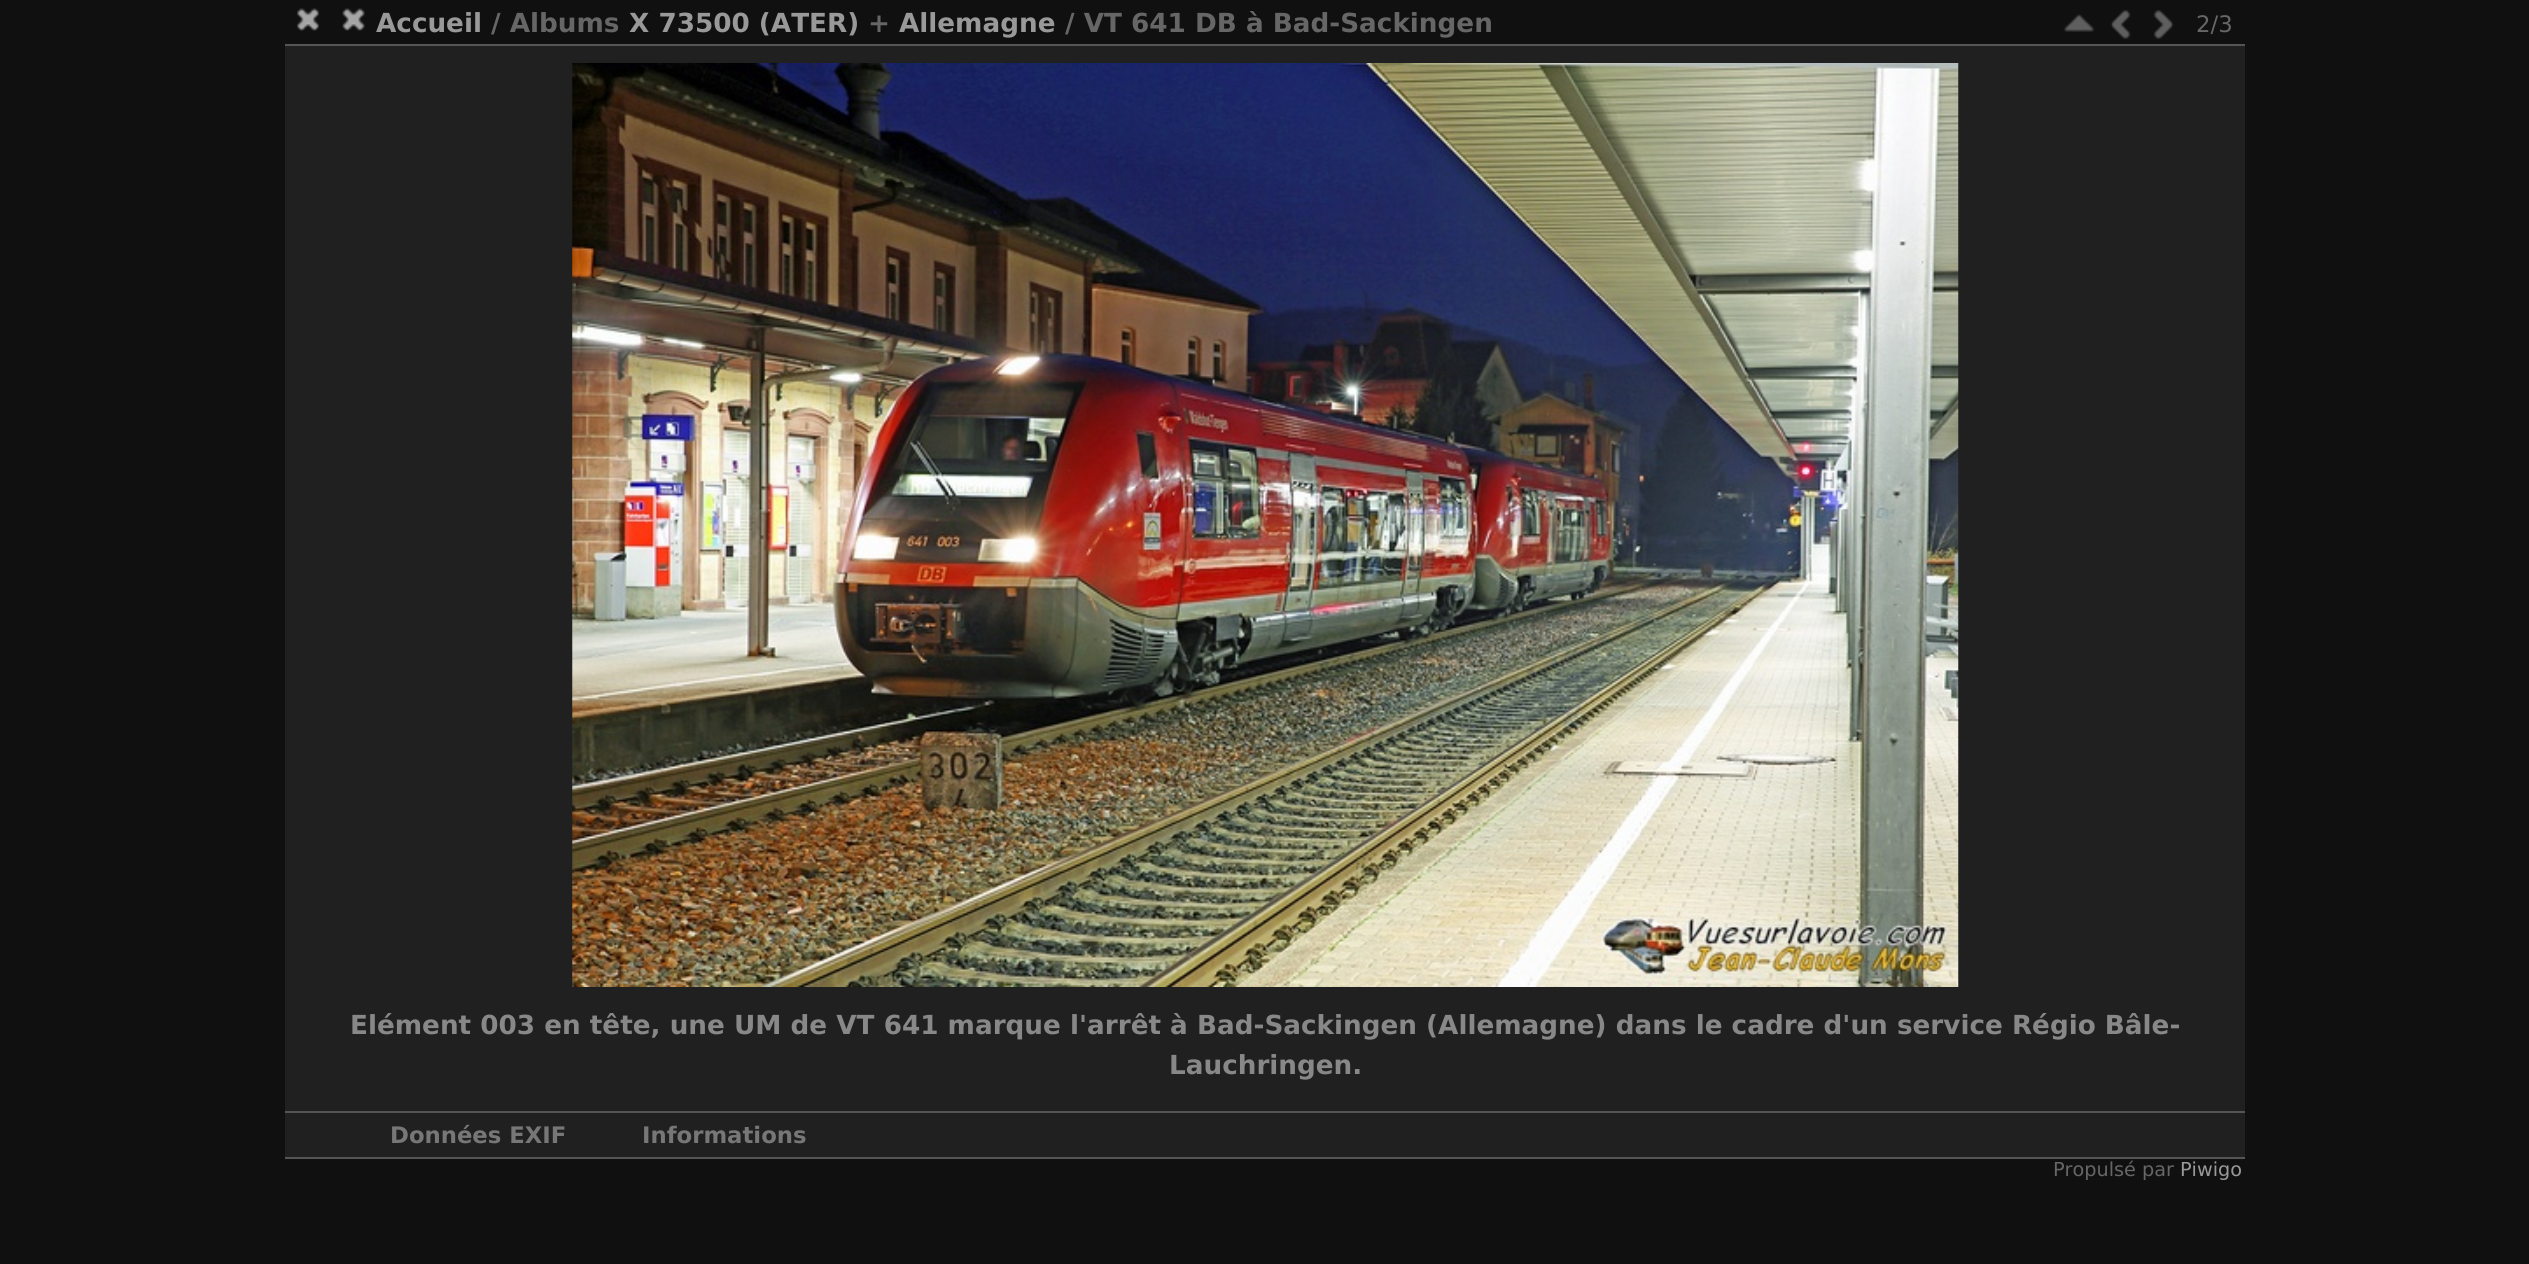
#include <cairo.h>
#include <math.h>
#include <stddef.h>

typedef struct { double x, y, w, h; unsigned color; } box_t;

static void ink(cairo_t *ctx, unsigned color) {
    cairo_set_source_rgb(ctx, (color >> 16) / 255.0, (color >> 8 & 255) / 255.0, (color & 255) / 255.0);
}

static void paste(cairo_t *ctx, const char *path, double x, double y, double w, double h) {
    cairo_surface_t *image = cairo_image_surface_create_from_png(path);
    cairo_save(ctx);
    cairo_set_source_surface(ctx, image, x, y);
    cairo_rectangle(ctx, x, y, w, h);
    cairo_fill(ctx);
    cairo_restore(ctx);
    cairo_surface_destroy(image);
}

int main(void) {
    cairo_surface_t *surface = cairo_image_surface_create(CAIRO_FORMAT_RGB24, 2529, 1264);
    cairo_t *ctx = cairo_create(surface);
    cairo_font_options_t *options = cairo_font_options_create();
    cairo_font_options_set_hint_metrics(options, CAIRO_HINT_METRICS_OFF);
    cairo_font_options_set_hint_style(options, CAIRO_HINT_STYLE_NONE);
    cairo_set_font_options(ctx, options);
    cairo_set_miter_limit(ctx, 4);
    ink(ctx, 0x101010);
    cairo_paint(ctx);
    paste(ctx, "media/1.png", 297, 8, 22, 23);
    paste(ctx, "media/2.png", 342, 8, 23, 23);
    cairo_select_font_face(ctx, "DejaVu Sans", CAIRO_FONT_SLANT_NORMAL, CAIRO_FONT_WEIGHT_BOLD);
    cairo_set_font_size(ctx, 26.25);
    ink(ctx, 0x999999);
    cairo_move_to(ctx, 376, 32);
    cairo_show_text(ctx, "Accueil");
    ink(ctx, 0x666666);
    cairo_move_to(ctx, 491, 32);
    cairo_show_text(ctx, "/ Albums");
    ink(ctx, 0x999999);
    cairo_move_to(ctx, 629, 32);
    cairo_show_text(ctx, "X 73500 (ATER)");
    ink(ctx, 0x666666);
    cairo_move_to(ctx, 868, 32);
    cairo_show_text(ctx, "+");
    ink(ctx, 0x999999);
    cairo_move_to(ctx, 899, 32);
    cairo_show_text(ctx, "Allemagne");
    ink(ctx, 0x666666);
    cairo_move_to(ctx, 1065, 32);
    cairo_show_text(ctx, "/ VT 641 DB à Bad-Sackingen");
    paste(ctx, "media/3.png", 2063, 14, 32, 18);
    paste(ctx, "media/4.png", 2110, 10, 21, 29);
    paste(ctx, "media/5.png", 2153, 10, 21, 29);
    cairo_select_font_face(ctx, "DejaVu Sans", CAIRO_FONT_SLANT_NORMAL, CAIRO_FONT_WEIGHT_NORMAL);
    cairo_set_font_size(ctx, 22.75);
    cairo_move_to(ctx, 2196, 32);
    cairo_show_text(ctx, "2/3");
    {
        static const box_t items[] = {
            {285, 46, 1960, 1111, 0x202020},
            {285, 44, 1960, 2, 0x555555},
            {285, 1157, 1960, 2, 0x555555},
        };
        for (size_t i = 0; i < sizeof items / sizeof *items; i++) {
            ink(ctx, items[i].color);
            cairo_rectangle(ctx, items[i].x, items[i].y, items[i].w, items[i].h);
            cairo_fill(ctx);
        }
    }
    paste(ctx, "media/6.png", 572, 63, 1387, 924);
    cairo_select_font_face(ctx, "DejaVu Sans", CAIRO_FONT_SLANT_NORMAL, CAIRO_FONT_WEIGHT_BOLD);
    cairo_set_font_size(ctx, 26.25);
    ink(ctx, 0x888888);
    cairo_move_to(ctx, 350, 1034);
    cairo_show_text(ctx, "Elément 003 en tête, une UM de VT 641 marque l'arrêt à Bad-Sackingen (Allemagne) dans le cadre d'un service Régio Bâle-");
    cairo_move_to(ctx, 1169, 1074);
    cairo_show_text(ctx, "Lauchringen.");
    ink(ctx, 0x555555);
    cairo_rectangle(ctx, 285, 1111, 1960, 2);
    cairo_fill(ctx);
    cairo_set_font_size(ctx, 22.75);
    ink(ctx, 0x777777);
    cairo_move_to(ctx, 390, 1143);
    cairo_show_text(ctx, "Données EXIF");
    cairo_move_to(ctx, 642, 1143);
    cairo_show_text(ctx, "Informations");
    cairo_select_font_face(ctx, "DejaVu Sans", CAIRO_FONT_SLANT_NORMAL, CAIRO_FONT_WEIGHT_NORMAL);
    cairo_set_font_size(ctx, 19.25);
    ink(ctx, 0x666666);
    cairo_move_to(ctx, 2053, 1176);
    cairo_show_text(ctx, "Propulsé par");
    ink(ctx, 0x999999);
    cairo_move_to(ctx, 2180, 1176);
    cairo_show_text(ctx, "Piwigo");
    cairo_surface_write_to_png(surface, "image.png");
    cairo_font_options_destroy(options);
    cairo_destroy(ctx);
    cairo_surface_destroy(surface);
    return 0;
}
